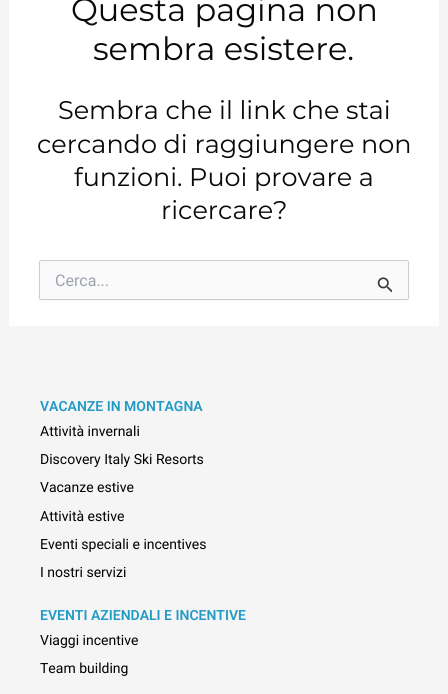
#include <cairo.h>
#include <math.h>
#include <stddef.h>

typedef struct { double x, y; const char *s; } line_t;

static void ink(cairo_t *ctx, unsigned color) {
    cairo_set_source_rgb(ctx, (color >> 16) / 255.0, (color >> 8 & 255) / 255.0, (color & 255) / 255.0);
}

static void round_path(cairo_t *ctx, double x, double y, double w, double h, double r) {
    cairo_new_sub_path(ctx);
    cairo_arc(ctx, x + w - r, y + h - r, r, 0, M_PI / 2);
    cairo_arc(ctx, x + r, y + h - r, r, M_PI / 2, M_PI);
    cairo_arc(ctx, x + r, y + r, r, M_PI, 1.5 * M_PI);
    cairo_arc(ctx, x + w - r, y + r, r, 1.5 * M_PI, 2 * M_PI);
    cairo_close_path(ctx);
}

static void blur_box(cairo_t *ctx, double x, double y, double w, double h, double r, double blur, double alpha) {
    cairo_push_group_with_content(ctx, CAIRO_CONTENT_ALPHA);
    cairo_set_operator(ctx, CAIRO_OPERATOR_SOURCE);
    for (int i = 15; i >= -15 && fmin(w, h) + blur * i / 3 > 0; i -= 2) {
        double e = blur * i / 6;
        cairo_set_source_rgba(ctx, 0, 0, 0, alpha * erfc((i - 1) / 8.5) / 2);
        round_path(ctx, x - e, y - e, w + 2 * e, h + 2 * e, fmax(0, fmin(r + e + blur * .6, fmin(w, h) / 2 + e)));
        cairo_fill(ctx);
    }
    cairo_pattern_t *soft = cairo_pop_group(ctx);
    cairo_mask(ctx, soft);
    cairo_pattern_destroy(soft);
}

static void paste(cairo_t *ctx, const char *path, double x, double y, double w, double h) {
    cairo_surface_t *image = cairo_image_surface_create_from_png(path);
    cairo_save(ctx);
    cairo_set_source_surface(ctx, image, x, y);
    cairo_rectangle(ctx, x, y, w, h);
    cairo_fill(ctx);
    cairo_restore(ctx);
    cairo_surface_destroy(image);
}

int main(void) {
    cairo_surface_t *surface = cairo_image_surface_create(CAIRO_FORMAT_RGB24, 448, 694);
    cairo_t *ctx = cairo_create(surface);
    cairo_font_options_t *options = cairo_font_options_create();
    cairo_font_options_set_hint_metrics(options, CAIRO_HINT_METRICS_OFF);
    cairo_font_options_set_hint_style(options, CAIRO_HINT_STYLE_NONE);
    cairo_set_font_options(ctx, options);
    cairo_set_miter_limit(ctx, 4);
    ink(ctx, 0xF5F5F5);
    cairo_paint(ctx);
    ink(ctx, 0xFFFFFF);
    cairo_rectangle(ctx, 9, 0, 430, 326);
    cairo_fill(ctx);
    cairo_select_font_face(ctx, "Montserrat", CAIRO_FONT_SLANT_NORMAL, CAIRO_FONT_WEIGHT_NORMAL);
    cairo_set_font_size(ctx, 32);
    ink(ctx, 0x090909);
    cairo_move_to(ctx, 71, 21);
    cairo_show_text(ctx, "Questa pagina non");
    cairo_move_to(ctx, 93, 60);
    cairo_show_text(ctx, "sembra esistere.");
    cairo_set_font_size(ctx, 25.5);
    {
        static const line_t items[] = {
            {58, 119, "Sembra che il link che stai"},
            {37, 153, "cercando di raggiungere non"},
            {74, 186, "funzioni. Puoi provare a"},
            {161, 219, "ricercare?"},
        };
        for (size_t i = 0; i < sizeof items / sizeof *items; i++) {
            cairo_move_to(ctx, items[i].x, items[i].y);
            cairo_show_text(ctx, items[i].s);
        }
    }
    ink(ctx, 0x000000);
    blur_box(ctx, 39, 261, 370, 40, 2, 1, 0.05);
    ink(ctx, 0xFAFAFA);
    round_path(ctx, 39.5, 260.5, 369, 39, 1.5);
    cairo_fill_preserve(ctx);
    ink(ctx, 0xCDCDCD);
    cairo_set_line_width(ctx, 1);
    cairo_stroke(ctx);
    cairo_select_font_face(ctx, "Roboto", CAIRO_FONT_SLANT_NORMAL, CAIRO_FONT_WEIGHT_NORMAL);
    cairo_set_font_size(ctx, 16);
    ink(ctx, 0x9CA3AF);
    cairo_move_to(ctx, 55, 286);
    cairo_show_text(ctx, "Cerca...");
    paste(ctx, "media/1.png", 377, 277, 15, 16);
    cairo_select_font_face(ctx, "Roboto SemiBold", CAIRO_FONT_SLANT_NORMAL, CAIRO_FONT_WEIGHT_NORMAL);
    cairo_set_font_size(ctx, 14);
    ink(ctx, 0x229AC6);
    cairo_move_to(ctx, 40, 411);
    cairo_show_text(ctx, "VACANZE IN MONTAGNA");
    cairo_select_font_face(ctx, "Roboto", CAIRO_FONT_SLANT_NORMAL, CAIRO_FONT_WEIGHT_NORMAL);
    ink(ctx, 0x000000);
    {
        static const line_t items[] = {
            {40, 436, "Attività invernali"},
            {40, 464, "Discovery Italy Ski Resorts"},
            {40, 492, "Vacanze estive"},
            {40, 521, "Attività estive"},
            {40, 549, "Eventi speciali e incentives"},
            {40, 577, "I nostri servizi"},
        };
        for (size_t i = 0; i < sizeof items / sizeof *items; i++) {
            cairo_move_to(ctx, items[i].x, items[i].y);
            cairo_show_text(ctx, items[i].s);
        }
    }
    cairo_select_font_face(ctx, "Roboto SemiBold", CAIRO_FONT_SLANT_NORMAL, CAIRO_FONT_WEIGHT_NORMAL);
    ink(ctx, 0x229AC6);
    cairo_move_to(ctx, 40, 620);
    cairo_show_text(ctx, "EVENTI AZIENDALI E INCENTIVE");
    cairo_select_font_face(ctx, "Roboto", CAIRO_FONT_SLANT_NORMAL, CAIRO_FONT_WEIGHT_NORMAL);
    ink(ctx, 0x000000);
    cairo_move_to(ctx, 40, 645);
    cairo_show_text(ctx, "Viaggi incentive");
    cairo_move_to(ctx, 40, 673);
    cairo_show_text(ctx, "Team building");
    cairo_surface_write_to_png(surface, "image.png");
    cairo_font_options_destroy(options);
    cairo_destroy(ctx);
    cairo_surface_destroy(surface);
    return 0;
}
